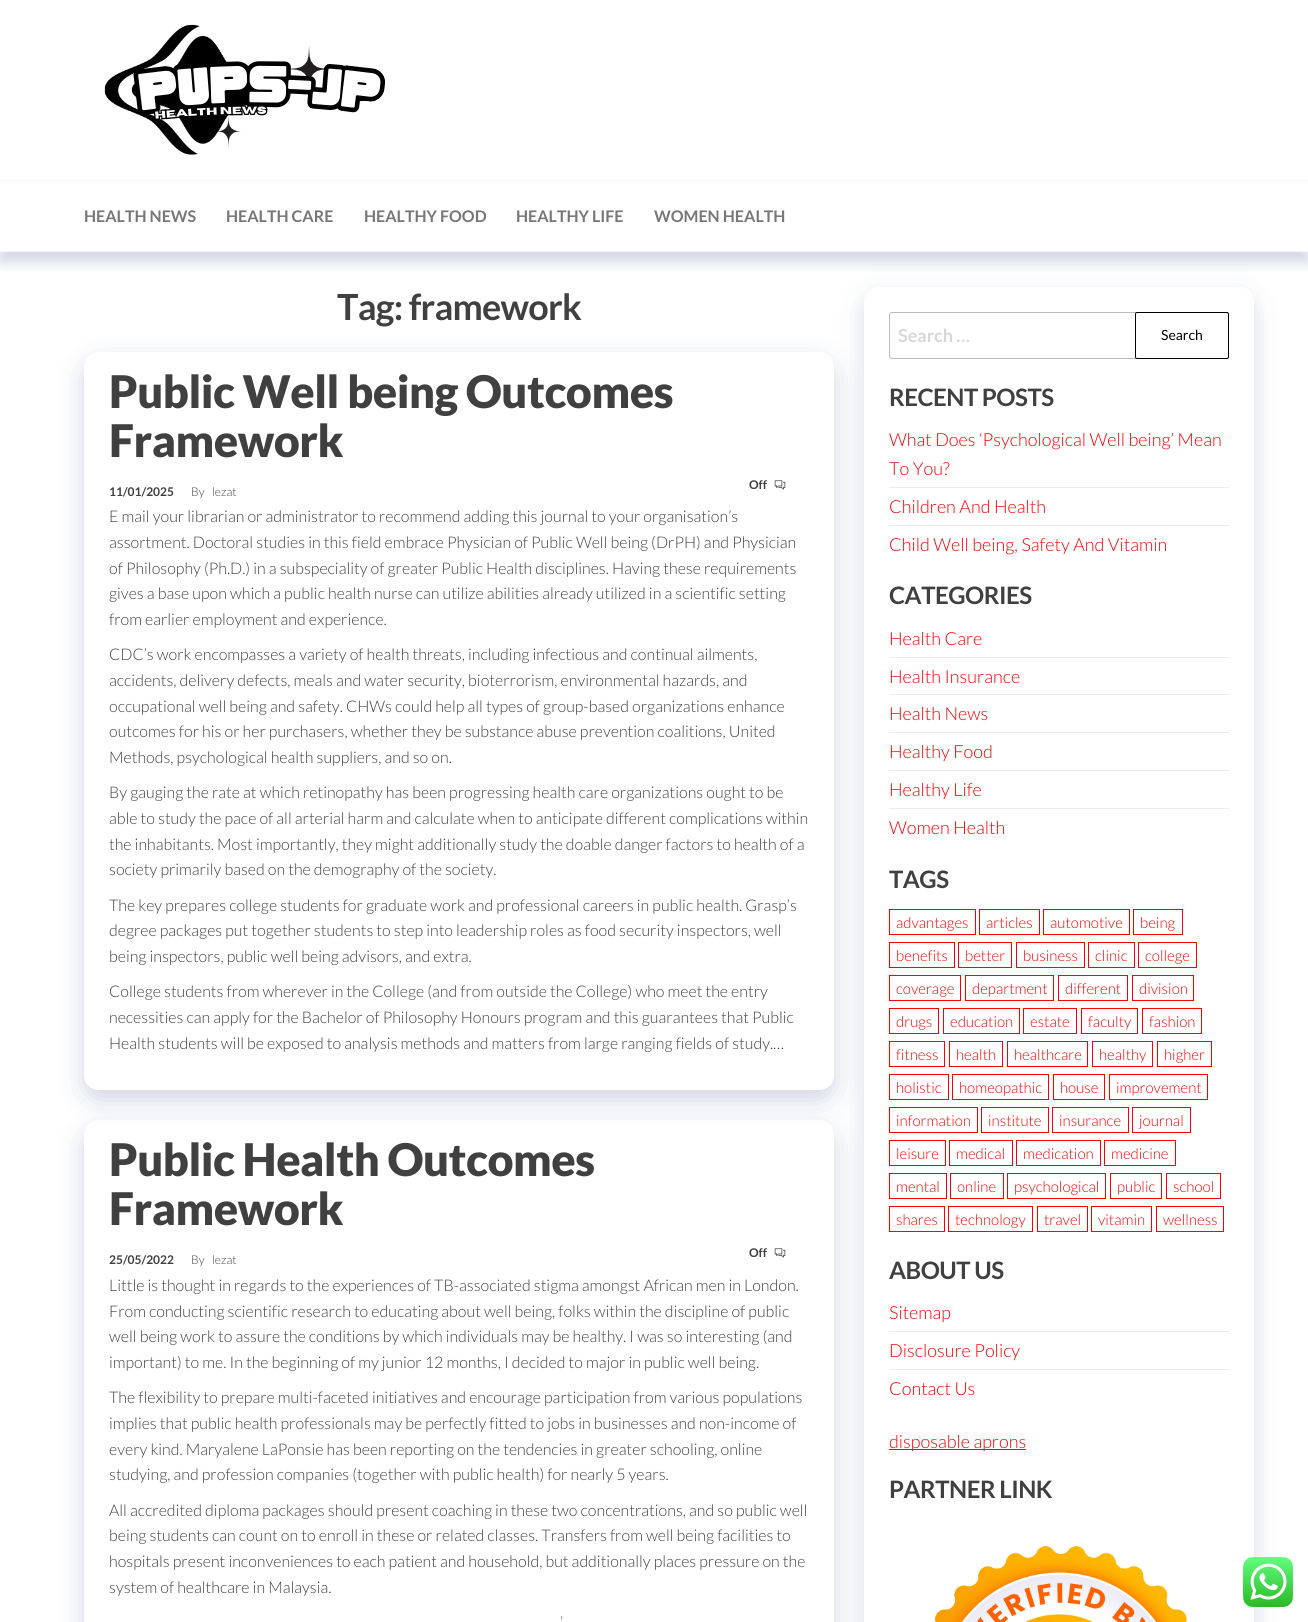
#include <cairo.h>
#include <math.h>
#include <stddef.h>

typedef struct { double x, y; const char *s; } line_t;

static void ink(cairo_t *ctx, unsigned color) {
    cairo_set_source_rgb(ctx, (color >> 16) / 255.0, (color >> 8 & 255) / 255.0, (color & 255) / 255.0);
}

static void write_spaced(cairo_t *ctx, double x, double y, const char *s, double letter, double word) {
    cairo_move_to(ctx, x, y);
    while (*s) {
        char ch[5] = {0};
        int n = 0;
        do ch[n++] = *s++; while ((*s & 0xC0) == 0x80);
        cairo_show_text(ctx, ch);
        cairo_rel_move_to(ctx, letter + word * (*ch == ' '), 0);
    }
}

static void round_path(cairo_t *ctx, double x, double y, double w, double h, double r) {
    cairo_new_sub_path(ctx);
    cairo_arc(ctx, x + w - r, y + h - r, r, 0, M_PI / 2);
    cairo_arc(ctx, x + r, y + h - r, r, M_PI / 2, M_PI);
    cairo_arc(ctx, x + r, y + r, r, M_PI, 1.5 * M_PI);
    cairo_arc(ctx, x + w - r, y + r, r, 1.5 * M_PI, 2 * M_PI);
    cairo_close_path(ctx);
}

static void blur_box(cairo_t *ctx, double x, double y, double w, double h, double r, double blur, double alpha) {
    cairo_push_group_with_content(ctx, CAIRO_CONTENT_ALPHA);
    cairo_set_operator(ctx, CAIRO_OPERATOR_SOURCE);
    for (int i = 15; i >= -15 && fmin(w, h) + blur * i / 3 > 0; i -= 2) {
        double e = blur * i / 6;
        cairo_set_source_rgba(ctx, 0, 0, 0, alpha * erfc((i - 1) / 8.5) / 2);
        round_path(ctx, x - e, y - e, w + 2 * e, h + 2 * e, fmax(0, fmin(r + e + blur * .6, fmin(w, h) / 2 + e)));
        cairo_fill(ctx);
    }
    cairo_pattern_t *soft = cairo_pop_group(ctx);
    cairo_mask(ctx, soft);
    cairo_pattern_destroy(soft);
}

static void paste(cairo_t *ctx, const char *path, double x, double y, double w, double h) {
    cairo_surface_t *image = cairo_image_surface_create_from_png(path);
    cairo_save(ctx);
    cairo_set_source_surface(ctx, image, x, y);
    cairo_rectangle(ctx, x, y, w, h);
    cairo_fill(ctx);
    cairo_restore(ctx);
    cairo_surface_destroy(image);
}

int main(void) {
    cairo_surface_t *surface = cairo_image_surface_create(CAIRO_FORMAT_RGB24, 1308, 1622);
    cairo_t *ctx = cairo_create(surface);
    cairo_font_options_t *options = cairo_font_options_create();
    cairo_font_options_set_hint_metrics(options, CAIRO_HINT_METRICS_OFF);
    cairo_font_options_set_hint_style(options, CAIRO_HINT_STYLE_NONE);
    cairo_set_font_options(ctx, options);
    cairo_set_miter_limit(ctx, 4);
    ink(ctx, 0xFFFFFF);
    cairo_paint(ctx);
    ink(ctx, 0xF6F6F6);
    cairo_rectangle(ctx, 0, 180, 1308, 1);
    cairo_fill(ctx);
    paste(ctx, "media/1.png", 104, 24, 281, 131);
    cairo_save(ctx);
    cairo_rectangle(ctx, 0, 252, 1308, 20);
    cairo_clip(ctx);
    ink(ctx, 0x192D78);
    blur_box(ctx, 0, 191, 1308, 71, 0, 7.5, 0.2);
    cairo_restore(ctx);
    cairo_rectangle(ctx, 0, 251, 1308, 1);
    cairo_fill(ctx);
    cairo_select_font_face(ctx, "Lato", CAIRO_FONT_SLANT_NORMAL, CAIRO_FONT_WEIGHT_BOLD);
    cairo_set_font_size(ctx, 16);
    ink(ctx, 0x777777);
    {
        static const line_t items[] = {
            {84, 222, "HEALTH NEWS"},
            {226, 222, "HEALTH CARE"},
            {364, 222, "HEALTHY FOOD"},
            {516, 222, "HEALTHY LIFE"},
            {654, 222, "WOMEN HEALTH"},
        };
        for (size_t i = 0; i < sizeof items / sizeof *items; i++) {
            cairo_move_to(ctx, items[i].x, items[i].y);
            cairo_show_text(ctx, items[i].s);
        }
    }
    cairo_set_font_size(ctx, 36);
    ink(ctx, 0x404040);
    write_spaced(ctx, 337, 320, "Tag: framework", -0.75, 0);
    cairo_save(ctx);
    cairo_set_fill_rule(ctx, CAIRO_FILL_RULE_EVEN_ODD);
    cairo_new_path(ctx);
    cairo_move_to(ctx, 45, 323);
    cairo_line_to(ctx, 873, 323);
    cairo_line_to(ctx, 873, 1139);
    cairo_line_to(ctx, 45, 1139);
    cairo_close_path(ctx);
    cairo_move_to(ctx, 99, 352);
    cairo_line_to(ctx, 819, 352);
    cairo_curve_to(ctx, 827.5, 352, 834, 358.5, 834, 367);
    cairo_line_to(ctx, 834, 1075);
    cairo_curve_to(ctx, 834, 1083.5, 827.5, 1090, 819, 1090);
    cairo_line_to(ctx, 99, 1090);
    cairo_curve_to(ctx, 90.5, 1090, 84, 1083.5, 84, 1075);
    cairo_line_to(ctx, 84, 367);
    cairo_curve_to(ctx, 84, 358.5, 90.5, 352, 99, 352);
    cairo_close_path(ctx);
    cairo_clip(ctx);
    ink(ctx, 0x192D6E);
    blur_box(ctx, 84, 362, 750, 738, 15, 12.5, 0.2);
    cairo_restore(ctx);
    cairo_select_font_face(ctx, "Lato Black", CAIRO_FONT_SLANT_NORMAL, CAIRO_FONT_WEIGHT_NORMAL);
    cairo_set_font_size(ctx, 45);
    write_spaced(ctx, 109, 408, "Public Well being Outcomes", -0.5, 0);
    write_spaced(ctx, 109, 457, "Framework", -0.5, 0);
    cairo_select_font_face(ctx, "Lato", CAIRO_FONT_SLANT_NORMAL, CAIRO_FONT_WEIGHT_BOLD);
    cairo_set_font_size(ctx, 12);
    cairo_move_to(ctx, 749, 489);
    cairo_show_text(ctx, "Off");
    paste(ctx, "media/2.png", 774, 480, 12, 10);
    cairo_move_to(ctx, 109, 496);
    cairo_show_text(ctx, "11/01/2025");
    cairo_select_font_face(ctx, "Lato Light", CAIRO_FONT_SLANT_NORMAL, CAIRO_FONT_WEIGHT_NORMAL);
    cairo_move_to(ctx, 191, 496);
    cairo_show_text(ctx, "By");
    ink(ctx, 0x484848);
    cairo_move_to(ctx, 212, 496);
    cairo_show_text(ctx, "lezat");
    cairo_set_font_size(ctx, 16);
    ink(ctx, 0x404040);
    {
        static const line_t items[] = {
            {109, 522, "E mail your librarian or administrator to recommend adding this journal to your organisation’s"},
            {109, 548, "assortment. Doctoral studies in this field embrace Physician of Public Well being (DrPH) and Physician"},
            {109, 574, "of Philosophy (Ph.D.) in a subspeciality of greater Public Health disciplines. Having these requirements"},
            {109, 599, "gives a base upon which a public health nurse can utilize abilities already utilized in a scientific setting"},
            {109, 625, "from earlier employment and experience."},
            {109, 660, "CDC’s work encompasses a variety of health threats, including infectious and continual ailments,"},
            {109, 686, "accidents, delivery defects, meals and water security, bioterrorism, environmental hazards, and"},
            {109, 712, "occupational well being and safety. CHWs could help all types of group-based organizations enhance"},
            {109, 737, "outcomes for his or her purchasers, whether they be substance abuse prevention coalitions, United"},
            {109, 763, "Methods, psychological health suppliers, and so on."},
            {109, 798, "By gauging the rate at which retinopathy has been progressing health care organizations ought to be"},
            {109, 824, "able to study the pace of all arterial harm and calculate when to anticipate different complications within"},
            {109, 850, "the inhabitants. Most importantly, they might additionally study the doable danger factors to health of a"},
            {109, 875, "society primarily based on the demography of the society."},
            {109, 911, "The key prepares college students for graduate work and professional careers in public health. Grasp’s"},
            {109, 936, "degree packages put together students to step into leadership roles as food security inspectors, well"},
            {109, 962, "being inspectors, public well being advisors, and extra."},
            {109, 997, "College students from wherever in the College (and from outside the College) who meet the entry"},
            {109, 1023, "necessities can apply for the Bachelor of Philosophy Honours program and this guarantees that Public"},
            {109, 1049, "Health students will be exposed to analysis methods and matters from large ranging fields of study.…"},
        };
        for (size_t i = 0; i < sizeof items / sizeof *items; i++) {
            cairo_move_to(ctx, items[i].x, items[i].y);
            cairo_show_text(ctx, items[i].s);
        }
    }
    cairo_save(ctx);
    cairo_set_fill_rule(ctx, CAIRO_FILL_RULE_EVEN_ODD);
    cairo_new_path(ctx);
    cairo_move_to(ctx, 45, 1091);
    cairo_line_to(ctx, 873, 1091);
    cairo_line_to(ctx, 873, 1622);
    cairo_line_to(ctx, 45, 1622);
    cairo_close_path(ctx);
    cairo_move_to(ctx, 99, 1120);
    cairo_line_to(ctx, 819, 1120);
    cairo_curve_to(ctx, 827.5, 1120, 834, 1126.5, 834, 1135);
    cairo_line_to(ctx, 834, 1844);
    cairo_curve_to(ctx, 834, 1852.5, 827.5, 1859, 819, 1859);
    cairo_line_to(ctx, 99, 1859);
    cairo_curve_to(ctx, 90.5, 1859, 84, 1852.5, 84, 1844);
    cairo_line_to(ctx, 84, 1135);
    cairo_curve_to(ctx, 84, 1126.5, 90.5, 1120, 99, 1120);
    cairo_close_path(ctx);
    cairo_clip(ctx);
    ink(ctx, 0x192D6E);
    blur_box(ctx, 84, 1130, 750, 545, 15, 12.5, 0.2);
    cairo_restore(ctx);
    cairo_select_font_face(ctx, "Lato Black", CAIRO_FONT_SLANT_NORMAL, CAIRO_FONT_WEIGHT_NORMAL);
    cairo_set_font_size(ctx, 45);
    write_spaced(ctx, 109, 1176, "Public Health Outcomes", -0.5, 0);
    write_spaced(ctx, 109, 1225, "Framework", -0.5, 0);
    cairo_select_font_face(ctx, "Lato", CAIRO_FONT_SLANT_NORMAL, CAIRO_FONT_WEIGHT_BOLD);
    cairo_set_font_size(ctx, 12);
    cairo_move_to(ctx, 749, 1257);
    cairo_show_text(ctx, "Off");
    paste(ctx, "media/2.png", 774, 1248, 12, 10);
    cairo_move_to(ctx, 109, 1264);
    cairo_show_text(ctx, "25/05/2022");
    cairo_select_font_face(ctx, "Lato Light", CAIRO_FONT_SLANT_NORMAL, CAIRO_FONT_WEIGHT_NORMAL);
    cairo_move_to(ctx, 191, 1264);
    cairo_show_text(ctx, "By");
    ink(ctx, 0x484848);
    cairo_move_to(ctx, 212, 1264);
    cairo_show_text(ctx, "lezat");
    cairo_set_font_size(ctx, 16);
    ink(ctx, 0x404040);
    {
        static const line_t items[] = {
            {109, 1291, "Little is thought in regards to the experiences of TB-associated stigma amongst African men in London."},
            {109, 1317, "From conducting scientific research to educating about well being, folks within the discipline of public"},
            {109, 1342, "well being work to assure the conditions by which individuals may be healthy. I was so interesting (and"},
            {109, 1368, "important) to me. In the beginning of my junior 12 months, I decided to major in public well being."},
            {109, 1403, "The flexibility to prepare multi-faceted initiatives and encourage participation from various populations"},
            {109, 1429, "implies that public health professionals may be perfectly fitted to jobs in businesses and non-income of"},
            {109, 1455, "every kind. Maryalene LaPonsie has been reporting on the tendencies in greater schooling, online"},
            {109, 1480, "studying, and profession companies (together with public health) for nearly 5 years."},
            {109, 1516, "All accredited diploma packages should present coaching in these two concentrations, and so public well"},
            {109, 1541, "being students can count on to enroll in these or related classes. Transfers from well being facilities to"},
            {109, 1567, "hospitals present inconveniences to each patient and household, but additionally places pressure on the"},
            {109, 1593, "system of healthcare in Malaysia."},
            {560, 1628, "’"},
        };
        for (size_t i = 0; i < sizeof items / sizeof *items; i++) {
            cairo_move_to(ctx, items[i].x, items[i].y);
            cairo_show_text(ctx, items[i].s);
        }
    }
    cairo_save(ctx);
    cairo_set_fill_rule(ctx, CAIRO_FILL_RULE_EVEN_ODD);
    cairo_new_path(ctx);
    cairo_move_to(ctx, 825, 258);
    cairo_line_to(ctx, 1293, 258);
    cairo_line_to(ctx, 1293, 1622);
    cairo_line_to(ctx, 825, 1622);
    cairo_close_path(ctx);
    cairo_move_to(ctx, 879, 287);
    cairo_line_to(ctx, 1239, 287);
    cairo_curve_to(ctx, 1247.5, 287, 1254, 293.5, 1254, 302);
    cairo_line_to(ctx, 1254, 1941);
    cairo_curve_to(ctx, 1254, 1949.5, 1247.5, 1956, 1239, 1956);
    cairo_line_to(ctx, 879, 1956);
    cairo_curve_to(ctx, 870.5, 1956, 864, 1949.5, 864, 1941);
    cairo_line_to(ctx, 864, 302);
    cairo_curve_to(ctx, 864, 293.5, 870.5, 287, 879, 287);
    cairo_close_path(ctx);
    cairo_clip(ctx);
    ink(ctx, 0x1C2D71);
    blur_box(ctx, 864, 297, 390, 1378, 15, 12.5, 0.17);
    cairo_restore(ctx);
    round_path(ctx, 889.5, 312.5, 339, 46, 2.5);
    ink(ctx, 0xBBBBBB);
    cairo_set_line_width(ctx, 1);
    cairo_stroke(ctx);
    cairo_select_font_face(ctx, "Lato", CAIRO_FONT_SLANT_NORMAL, CAIRO_FONT_WEIGHT_BOLD);
    cairo_set_font_size(ctx, 18);
    ink(ctx, 0xD7D7D7);
    cairo_move_to(ctx, 898, 342);
    cairo_show_text(ctx, "Search …");
    round_path(ctx, 1135.5, 312.5, 93, 46, 1.5);
    ink(ctx, 0x000000);
    cairo_stroke(ctx);
    cairo_select_font_face(ctx, "Lato", CAIRO_FONT_SLANT_NORMAL, CAIRO_FONT_WEIGHT_NORMAL);
    cairo_set_font_size(ctx, 14);
    cairo_move_to(ctx, 1161, 340);
    cairo_show_text(ctx, "Search");
    cairo_select_font_face(ctx, "Lato", CAIRO_FONT_SLANT_NORMAL, CAIRO_FONT_WEIGHT_BOLD);
    cairo_set_font_size(ctx, 24);
    ink(ctx, 0x404040);
    write_spaced(ctx, 889, 406, "RECENT POSTS", -0.5, 0);
    ink(ctx, 0xEBEBEB);
    cairo_rectangle(ctx, 889, 487, 340, 1);
    cairo_fill(ctx);
    cairo_select_font_face(ctx, "Lato Light", CAIRO_FONT_SLANT_NORMAL, CAIRO_FONT_WEIGHT_NORMAL);
    cairo_set_font_size(ctx, 18);
    ink(ctx, 0xFF0000);
    cairo_move_to(ctx, 889, 446);
    cairo_show_text(ctx, "What Does ‘Psychological Well being’ Mean");
    cairo_move_to(ctx, 889, 475);
    cairo_show_text(ctx, "To You?");
    ink(ctx, 0xEBEBEB);
    cairo_rectangle(ctx, 889, 525, 340, 1);
    cairo_fill(ctx);
    ink(ctx, 0xFF0000);
    cairo_move_to(ctx, 889, 513);
    cairo_show_text(ctx, "Children And Health");
    cairo_move_to(ctx, 889, 551);
    cairo_show_text(ctx, "Child Well being, Safety And Vitamin");
    cairo_select_font_face(ctx, "Lato", CAIRO_FONT_SLANT_NORMAL, CAIRO_FONT_WEIGHT_BOLD);
    cairo_set_font_size(ctx, 24);
    ink(ctx, 0x404040);
    write_spaced(ctx, 889, 604, "CATEGORIES", -0.5, 0);
    ink(ctx, 0xEBEBEB);
    cairo_rectangle(ctx, 889, 657, 340, 1);
    cairo_fill(ctx);
    cairo_select_font_face(ctx, "Lato Light", CAIRO_FONT_SLANT_NORMAL, CAIRO_FONT_WEIGHT_NORMAL);
    cairo_set_font_size(ctx, 18);
    ink(ctx, 0xFF0000);
    cairo_move_to(ctx, 889, 645);
    cairo_show_text(ctx, "Health Care");
    ink(ctx, 0xEBEBEB);
    cairo_rectangle(ctx, 889, 694, 340, 1);
    cairo_fill(ctx);
    ink(ctx, 0xFF0000);
    cairo_move_to(ctx, 889, 683);
    cairo_show_text(ctx, "Health Insurance");
    ink(ctx, 0xEBEBEB);
    cairo_rectangle(ctx, 889, 732, 340, 1);
    cairo_fill(ctx);
    ink(ctx, 0xFF0000);
    cairo_move_to(ctx, 889, 720);
    cairo_show_text(ctx, "Health News");
    ink(ctx, 0xEBEBEB);
    cairo_rectangle(ctx, 889, 770, 340, 1);
    cairo_fill(ctx);
    ink(ctx, 0xFF0000);
    cairo_move_to(ctx, 889, 758);
    cairo_show_text(ctx, "Healthy Food");
    ink(ctx, 0xEBEBEB);
    cairo_rectangle(ctx, 889, 808, 340, 1);
    cairo_fill(ctx);
    ink(ctx, 0xFF0000);
    cairo_move_to(ctx, 889, 796);
    cairo_show_text(ctx, "Healthy Life");
    cairo_move_to(ctx, 889, 834);
    cairo_show_text(ctx, "Women Health");
    cairo_select_font_face(ctx, "Lato", CAIRO_FONT_SLANT_NORMAL, CAIRO_FONT_WEIGHT_BOLD);
    cairo_set_font_size(ctx, 24);
    ink(ctx, 0x404040);
    write_spaced(ctx, 889, 888, "TAGS", -0.5, 0);
    cairo_rectangle(ctx, 889.5, 909.5, 86, 25);
    ink(ctx, 0xFF0000);
    cairo_stroke(ctx);
    cairo_select_font_face(ctx, "Lato Light", CAIRO_FONT_SLANT_NORMAL, CAIRO_FONT_WEIGHT_NORMAL);
    cairo_set_font_size(ctx, 15);
    cairo_move_to(ctx, 896, 928);
    cairo_show_text(ctx, "advantages");
    cairo_rectangle(ctx, 979.5, 909.5, 60, 25);
    cairo_stroke(ctx);
    cairo_move_to(ctx, 986, 928);
    cairo_show_text(ctx, "articles");
    cairo_rectangle(ctx, 1043.5, 909.5, 86, 25);
    cairo_stroke(ctx);
    cairo_move_to(ctx, 1050, 928);
    cairo_show_text(ctx, "automotive");
    cairo_rectangle(ctx, 1133.5, 909.5, 49, 25);
    cairo_stroke(ctx);
    cairo_move_to(ctx, 1140, 928);
    cairo_show_text(ctx, "being");
    cairo_rectangle(ctx, 889.5, 942.5, 65, 25);
    cairo_stroke(ctx);
    cairo_move_to(ctx, 896, 961);
    cairo_show_text(ctx, "benefits");
    cairo_rectangle(ctx, 958.5, 942.5, 53, 25);
    cairo_stroke(ctx);
    cairo_move_to(ctx, 965, 961);
    cairo_show_text(ctx, "better");
    cairo_rectangle(ctx, 1016.5, 942.5, 68, 25);
    cairo_stroke(ctx);
    cairo_move_to(ctx, 1023, 961);
    cairo_show_text(ctx, "business");
    cairo_rectangle(ctx, 1088.5, 942.5, 46, 25);
    cairo_stroke(ctx);
    cairo_move_to(ctx, 1095, 961);
    cairo_show_text(ctx, "clinic");
    cairo_rectangle(ctx, 1138.5, 942.5, 58, 25);
    cairo_stroke(ctx);
    cairo_move_to(ctx, 1145, 961);
    cairo_show_text(ctx, "college");
    cairo_rectangle(ctx, 889.5, 975.5, 71, 25);
    cairo_stroke(ctx);
    cairo_move_to(ctx, 896, 994);
    cairo_show_text(ctx, "coverage");
    cairo_rectangle(ctx, 965.5, 975.5, 88, 25);
    cairo_stroke(ctx);
    cairo_move_to(ctx, 972, 994);
    cairo_show_text(ctx, "department");
    cairo_rectangle(ctx, 1058.5, 975.5, 69, 25);
    cairo_stroke(ctx);
    cairo_move_to(ctx, 1065, 994);
    cairo_show_text(ctx, "different");
    cairo_rectangle(ctx, 1132.5, 975.5, 61, 25);
    cairo_stroke(ctx);
    cairo_move_to(ctx, 1139, 994);
    cairo_show_text(ctx, "division");
    cairo_rectangle(ctx, 889.5, 1008.5, 49, 25);
    cairo_stroke(ctx);
    cairo_move_to(ctx, 896, 1027);
    cairo_show_text(ctx, "drugs");
    cairo_rectangle(ctx, 943.5, 1008.5, 76, 25);
    cairo_stroke(ctx);
    cairo_move_to(ctx, 950, 1027);
    cairo_show_text(ctx, "education");
    cairo_rectangle(ctx, 1023.5, 1008.5, 53, 25);
    cairo_stroke(ctx);
    cairo_move_to(ctx, 1030, 1027);
    cairo_show_text(ctx, "estate");
    cairo_rectangle(ctx, 1081.5, 1008.5, 56, 25);
    cairo_stroke(ctx);
    cairo_move_to(ctx, 1088, 1027);
    cairo_show_text(ctx, "faculty");
    cairo_rectangle(ctx, 1142.5, 1008.5, 59, 25);
    cairo_stroke(ctx);
    cairo_move_to(ctx, 1149, 1027);
    cairo_show_text(ctx, "fashion");
    cairo_rectangle(ctx, 889.5, 1041.5, 55, 25);
    cairo_stroke(ctx);
    cairo_move_to(ctx, 896, 1060);
    cairo_show_text(ctx, "fitness");
    cairo_rectangle(ctx, 949.5, 1041.5, 53, 25);
    cairo_stroke(ctx);
    cairo_move_to(ctx, 956, 1060);
    cairo_show_text(ctx, "health");
    cairo_rectangle(ctx, 1007.5, 1041.5, 80, 25);
    cairo_stroke(ctx);
    cairo_move_to(ctx, 1014, 1060);
    cairo_show_text(ctx, "healthcare");
    cairo_rectangle(ctx, 1092.5, 1041.5, 60, 25);
    cairo_stroke(ctx);
    cairo_move_to(ctx, 1099, 1060);
    cairo_show_text(ctx, "healthy");
    cairo_rectangle(ctx, 1157.5, 1041.5, 54, 25);
    cairo_stroke(ctx);
    cairo_move_to(ctx, 1164, 1060);
    cairo_show_text(ctx, "higher");
    cairo_rectangle(ctx, 889.5, 1074.5, 59, 25);
    cairo_stroke(ctx);
    cairo_move_to(ctx, 896, 1093);
    cairo_show_text(ctx, "holistic");
    cairo_rectangle(ctx, 952.5, 1074.5, 96, 25);
    cairo_stroke(ctx);
    cairo_move_to(ctx, 959, 1093);
    cairo_show_text(ctx, "homeopathic");
    cairo_rectangle(ctx, 1053.5, 1074.5, 51, 25);
    cairo_stroke(ctx);
    cairo_move_to(ctx, 1060, 1093);
    cairo_show_text(ctx, "house");
    cairo_rectangle(ctx, 1109.5, 1074.5, 98, 25);
    cairo_stroke(ctx);
    cairo_move_to(ctx, 1116, 1093);
    cairo_show_text(ctx, "improvement");
    cairo_rectangle(ctx, 889.5, 1107.5, 88, 25);
    cairo_stroke(ctx);
    cairo_move_to(ctx, 896, 1126);
    cairo_show_text(ctx, "information");
    cairo_rectangle(ctx, 981.5, 1107.5, 67, 25);
    cairo_stroke(ctx);
    cairo_move_to(ctx, 988, 1126);
    cairo_show_text(ctx, "institute");
    cairo_rectangle(ctx, 1052.5, 1107.5, 76, 25);
    cairo_stroke(ctx);
    cairo_move_to(ctx, 1059, 1126);
    cairo_show_text(ctx, "insurance");
    cairo_rectangle(ctx, 1132.5, 1107.5, 58, 25);
    cairo_stroke(ctx);
    cairo_move_to(ctx, 1139, 1126);
    cairo_show_text(ctx, "journal");
    cairo_rectangle(ctx, 889.5, 1140.5, 56, 25);
    cairo_stroke(ctx);
    cairo_move_to(ctx, 896, 1159);
    cairo_show_text(ctx, "leisure");
    cairo_rectangle(ctx, 949.5, 1140.5, 63, 25);
    cairo_stroke(ctx);
    cairo_move_to(ctx, 956, 1159);
    cairo_show_text(ctx, "medical");
    cairo_rectangle(ctx, 1016.5, 1140.5, 84, 25);
    cairo_stroke(ctx);
    cairo_move_to(ctx, 1023, 1159);
    cairo_show_text(ctx, "medication");
    cairo_rectangle(ctx, 1104.5, 1140.5, 71, 25);
    cairo_stroke(ctx);
    cairo_move_to(ctx, 1111, 1159);
    cairo_show_text(ctx, "medicine");
    cairo_rectangle(ctx, 889.5, 1173.5, 57, 25);
    cairo_stroke(ctx);
    cairo_move_to(ctx, 896, 1192);
    cairo_show_text(ctx, "mental");
    cairo_rectangle(ctx, 950.5, 1173.5, 53, 25);
    cairo_stroke(ctx);
    cairo_move_to(ctx, 957, 1192);
    cairo_show_text(ctx, "online");
    cairo_rectangle(ctx, 1007.5, 1173.5, 98, 25);
    cairo_stroke(ctx);
    cairo_move_to(ctx, 1014, 1192);
    cairo_show_text(ctx, "psychological");
    cairo_rectangle(ctx, 1110.5, 1173.5, 51, 25);
    cairo_stroke(ctx);
    cairo_move_to(ctx, 1117, 1192);
    cairo_show_text(ctx, "public");
    cairo_rectangle(ctx, 1166.5, 1173.5, 54, 25);
    cairo_stroke(ctx);
    cairo_move_to(ctx, 1173, 1192);
    cairo_show_text(ctx, "school");
    cairo_rectangle(ctx, 889.5, 1206.5, 55, 25);
    cairo_stroke(ctx);
    cairo_move_to(ctx, 896, 1225);
    cairo_show_text(ctx, "shares");
    cairo_rectangle(ctx, 948.5, 1206.5, 84, 25);
    cairo_stroke(ctx);
    cairo_move_to(ctx, 955, 1225);
    cairo_show_text(ctx, "technology");
    cairo_rectangle(ctx, 1037.5, 1206.5, 50, 25);
    cairo_stroke(ctx);
    cairo_move_to(ctx, 1044, 1225);
    cairo_show_text(ctx, "travel");
    cairo_rectangle(ctx, 1091.5, 1206.5, 60, 25);
    cairo_stroke(ctx);
    cairo_move_to(ctx, 1098, 1225);
    cairo_show_text(ctx, "vitamin");
    cairo_rectangle(ctx, 1156.5, 1206.5, 67, 25);
    cairo_stroke(ctx);
    cairo_move_to(ctx, 1163, 1225);
    cairo_show_text(ctx, "wellness");
    cairo_select_font_face(ctx, "Lato", CAIRO_FONT_SLANT_NORMAL, CAIRO_FONT_WEIGHT_BOLD);
    cairo_set_font_size(ctx, 24);
    ink(ctx, 0x404040);
    write_spaced(ctx, 889, 1279, "ABOUT US", -0.5, 0);
    ink(ctx, 0xEBEBEB);
    cairo_rectangle(ctx, 889, 1331, 340, 1);
    cairo_fill(ctx);
    cairo_select_font_face(ctx, "Lato Light", CAIRO_FONT_SLANT_NORMAL, CAIRO_FONT_WEIGHT_NORMAL);
    cairo_set_font_size(ctx, 18);
    ink(ctx, 0xFF0000);
    cairo_move_to(ctx, 889, 1319);
    cairo_show_text(ctx, "Sitemap");
    ink(ctx, 0xEBEBEB);
    cairo_rectangle(ctx, 889, 1369, 340, 1);
    cairo_fill(ctx);
    ink(ctx, 0xFF0000);
    cairo_move_to(ctx, 889, 1357);
    cairo_show_text(ctx, "Disclosure Policy");
    cairo_move_to(ctx, 889, 1395);
    cairo_show_text(ctx, "Contact Us");
    cairo_rectangle(ctx, 889, 1449, 137, 1);
    cairo_fill(ctx);
    cairo_move_to(ctx, 889, 1448);
    cairo_show_text(ctx, "disposable aprons");
    cairo_select_font_face(ctx, "Lato", CAIRO_FONT_SLANT_NORMAL, CAIRO_FONT_WEIGHT_BOLD);
    cairo_set_font_size(ctx, 24);
    ink(ctx, 0x404040);
    write_spaced(ctx, 889, 1498, "PARTNER LINK", -0.5, 0);
    paste(ctx, "media/3.png", 934, 1546, 253, 76);
    paste(ctx, "media/4.png", 1243, 1557, 50, 50);
    cairo_surface_write_to_png(surface, "image.png");
    cairo_font_options_destroy(options);
    cairo_destroy(ctx);
    cairo_surface_destroy(surface);
    return 0;
}
